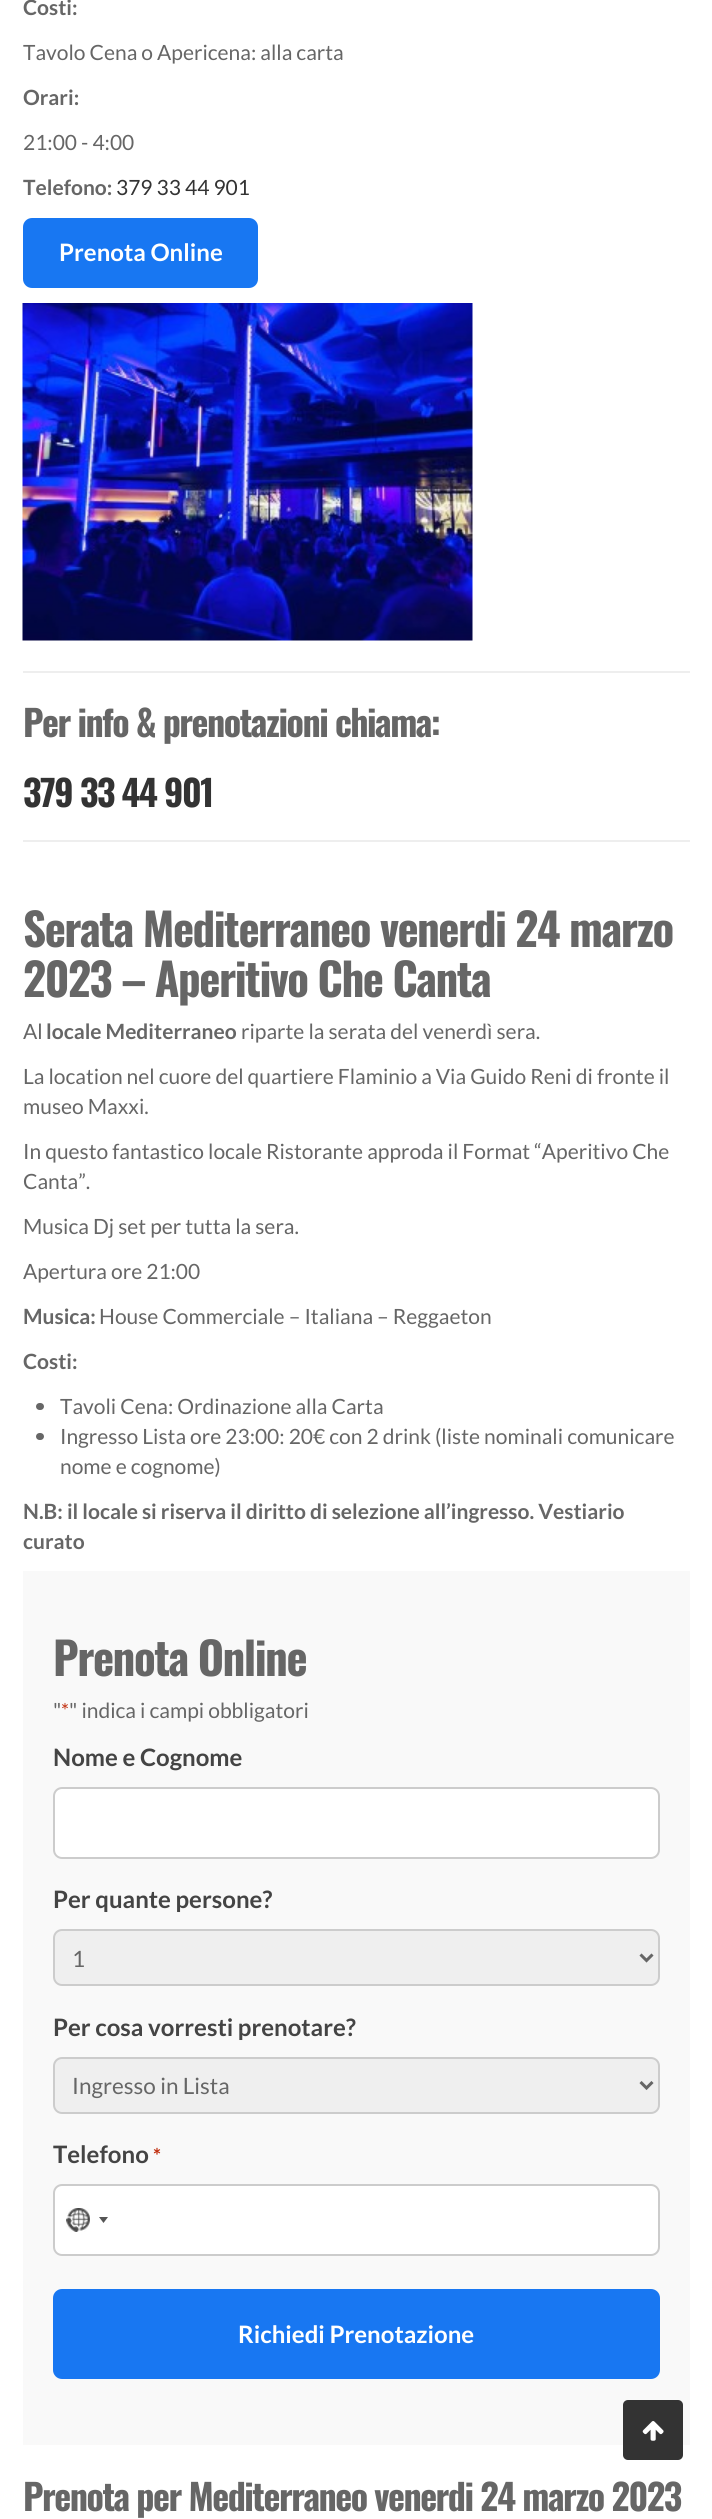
#include <cairo.h>
#include <math.h>
#include <stddef.h>

typedef struct { double x, y; const char *s; } line_t;

static void ink(cairo_t *ctx, unsigned color) {
    cairo_set_source_rgb(ctx, (color >> 16) / 255.0, (color >> 8 & 255) / 255.0, (color & 255) / 255.0);
}

static void write_spaced(cairo_t *ctx, double x, double y, const char *s, double letter, double word) {
    cairo_move_to(ctx, x, y);
    while (*s) {
        char ch[5] = {0};
        int n = 0;
        do ch[n++] = *s++; while ((*s & 0xC0) == 0x80);
        cairo_show_text(ctx, ch);
        cairo_rel_move_to(ctx, letter + word * (*ch == ' '), 0);
    }
}

static void round_path(cairo_t *ctx, double x, double y, double w, double h, double r) {
    cairo_new_sub_path(ctx);
    cairo_arc(ctx, x + w - r, y + h - r, r, 0, M_PI / 2);
    cairo_arc(ctx, x + r, y + h - r, r, M_PI / 2, M_PI);
    cairo_arc(ctx, x + r, y + r, r, M_PI, 1.5 * M_PI);
    cairo_arc(ctx, x + w - r, y + r, r, 1.5 * M_PI, 2 * M_PI);
    cairo_close_path(ctx);
}

static void paste(cairo_t *ctx, const char *path, double x, double y, double w, double h) {
    cairo_surface_t *image = cairo_image_surface_create_from_png(path);
    cairo_save(ctx);
    cairo_set_source_surface(ctx, image, x, y);
    cairo_rectangle(ctx, x, y, w, h);
    cairo_fill(ctx);
    cairo_restore(ctx);
    cairo_surface_destroy(image);
}

int main(void) {
    cairo_surface_t *surface = cairo_image_surface_create(CAIRO_FORMAT_RGB24, 712, 2519);
    cairo_t *ctx = cairo_create(surface);
    cairo_font_options_t *options = cairo_font_options_create();
    cairo_font_options_set_hint_metrics(options, CAIRO_HINT_METRICS_OFF);
    cairo_font_options_set_hint_style(options, CAIRO_HINT_STYLE_NONE);
    cairo_set_font_options(ctx, options);
    cairo_set_miter_limit(ctx, 4);
    ink(ctx, 0xFFFFFF);
    cairo_paint(ctx);
    cairo_select_font_face(ctx, "Lato", CAIRO_FONT_SLANT_NORMAL, CAIRO_FONT_WEIGHT_BOLD);
    cairo_set_font_size(ctx, 21);
    ink(ctx, 0x666666);
    cairo_move_to(ctx, 23, 15);
    cairo_show_text(ctx, "Costi:");
    cairo_select_font_face(ctx, "Lato", CAIRO_FONT_SLANT_NORMAL, CAIRO_FONT_WEIGHT_NORMAL);
    cairo_move_to(ctx, 23, 60);
    cairo_show_text(ctx, "Tavolo Cena o Apericena: alla carta");
    cairo_select_font_face(ctx, "Lato", CAIRO_FONT_SLANT_NORMAL, CAIRO_FONT_WEIGHT_BOLD);
    cairo_move_to(ctx, 23, 105);
    cairo_show_text(ctx, "Orari:");
    cairo_select_font_face(ctx, "Lato", CAIRO_FONT_SLANT_NORMAL, CAIRO_FONT_WEIGHT_NORMAL);
    cairo_move_to(ctx, 23, 150);
    cairo_show_text(ctx, "21:00 - 4:00");
    cairo_select_font_face(ctx, "Lato", CAIRO_FONT_SLANT_NORMAL, CAIRO_FONT_WEIGHT_BOLD);
    cairo_move_to(ctx, 23, 195);
    cairo_show_text(ctx, "Telefono:");
    cairo_select_font_face(ctx, "Lato", CAIRO_FONT_SLANT_NORMAL, CAIRO_FONT_WEIGHT_NORMAL);
    ink(ctx, 0x333333);
    cairo_move_to(ctx, 116, 195);
    cairo_show_text(ctx, "379 33 44 901");
    ink(ctx, 0x1877F2);
    round_path(ctx, 23, 218, 235, 70, 9);
    cairo_fill(ctx);
    cairo_select_font_face(ctx, "Lato", CAIRO_FONT_SLANT_NORMAL, CAIRO_FONT_WEIGHT_BOLD);
    cairo_set_font_size(ctx, 24);
    ink(ctx, 0xFFFFFF);
    cairo_move_to(ctx, 59, 261);
    cairo_show_text(ctx, "Prenota Online");
    paste(ctx, "media/1.png", 22, 303, 451, 338);
    ink(ctx, 0xEEEEEE);
    cairo_rectangle(ctx, 23, 671, 667, 2);
    cairo_fill(ctx);
    cairo_select_font_face(ctx, "Oswald", CAIRO_FONT_SLANT_NORMAL, CAIRO_FONT_WEIGHT_BOLD);
    cairo_set_font_size(ctx, 36);
    ink(ctx, 0x666666);
    write_spaced(ctx, 23, 737, "Per info & prenotazioni chiama:", -1.5, 0);
    ink(ctx, 0x333333);
    write_spaced(ctx, 23, 807, "379 33 44 901", -1.5, 0);
    ink(ctx, 0xEEEEEE);
    cairo_rectangle(ctx, 23, 840, 667, 2);
    cairo_fill(ctx);
    cairo_set_font_size(ctx, 45);
    ink(ctx, 0x666666);
    write_spaced(ctx, 23, 947, "Serata Mediterraneo venerdi 24 marzo", -1.5, 0);
    write_spaced(ctx, 23, 997, "2023 – Aperitivo Che Canta", -1.5, 0);
    cairo_select_font_face(ctx, "Lato", CAIRO_FONT_SLANT_NORMAL, CAIRO_FONT_WEIGHT_NORMAL);
    cairo_set_font_size(ctx, 21);
    cairo_move_to(ctx, 23, 1039);
    cairo_show_text(ctx, "Al");
    cairo_select_font_face(ctx, "Lato", CAIRO_FONT_SLANT_NORMAL, CAIRO_FONT_WEIGHT_BOLD);
    cairo_move_to(ctx, 46, 1039);
    cairo_show_text(ctx, "locale Mediterraneo");
    cairo_select_font_face(ctx, "Lato", CAIRO_FONT_SLANT_NORMAL, CAIRO_FONT_WEIGHT_NORMAL);
    {
        static const line_t items[] = {
            {241, 1039, "riparte la serata del venerdì sera."},
            {23, 1084, "La location nel cuore del quartiere Flaminio a Via Guido Reni di fronte il"},
            {23, 1114, "museo Maxxi."},
            {23, 1159, "In questo fantastico locale Ristorante approda il Format “Aperitivo Che"},
            {23, 1189, "Canta”."},
            {23, 1234, "Musica Dj set per tutta la sera."},
            {23, 1279, "Apertura ore 21:00"},
        };
        for (size_t i = 0; i < sizeof items / sizeof *items; i++) {
            cairo_move_to(ctx, items[i].x, items[i].y);
            cairo_show_text(ctx, items[i].s);
        }
    }
    cairo_select_font_face(ctx, "Lato", CAIRO_FONT_SLANT_NORMAL, CAIRO_FONT_WEIGHT_BOLD);
    cairo_move_to(ctx, 23, 1324);
    cairo_show_text(ctx, "Musica:");
    cairo_select_font_face(ctx, "Lato", CAIRO_FONT_SLANT_NORMAL, CAIRO_FONT_WEIGHT_NORMAL);
    cairo_move_to(ctx, 99, 1324);
    cairo_show_text(ctx, "House Commerciale – Italiana – Reggaeton");
    cairo_select_font_face(ctx, "Lato", CAIRO_FONT_SLANT_NORMAL, CAIRO_FONT_WEIGHT_BOLD);
    cairo_move_to(ctx, 23, 1369);
    cairo_show_text(ctx, "Costi:");
    round_path(ctx, 36, 1403, 8, 7, 3.5);
    cairo_fill(ctx);
    cairo_select_font_face(ctx, "Lato", CAIRO_FONT_SLANT_NORMAL, CAIRO_FONT_WEIGHT_NORMAL);
    cairo_move_to(ctx, 60, 1414);
    cairo_show_text(ctx, "Tavoli Cena: Ordinazione alla Carta");
    round_path(ctx, 36, 1433, 8, 7, 3.5);
    cairo_fill(ctx);
    cairo_move_to(ctx, 60, 1444);
    cairo_show_text(ctx, "Ingresso Lista ore 23:00: 20€ con 2 drink (liste nominali comunicare");
    cairo_move_to(ctx, 60, 1474);
    cairo_show_text(ctx, "nome e cognome)");
    cairo_select_font_face(ctx, "Lato", CAIRO_FONT_SLANT_NORMAL, CAIRO_FONT_WEIGHT_BOLD);
    cairo_move_to(ctx, 23, 1519);
    cairo_show_text(ctx, "N.B: il locale si riserva il diritto di selezione all’ingresso. Vestiario");
    cairo_move_to(ctx, 23, 1549);
    cairo_show_text(ctx, "curato");
    ink(ctx, 0xF9F9F9);
    cairo_rectangle(ctx, 23, 1571, 667, 874);
    cairo_fill(ctx);
    cairo_select_font_face(ctx, "Oswald", CAIRO_FONT_SLANT_NORMAL, CAIRO_FONT_WEIGHT_BOLD);
    cairo_set_font_size(ctx, 45);
    ink(ctx, 0x666666);
    write_spaced(ctx, 53, 1676, "Prenota Online", -1.5, 0);
    cairo_select_font_face(ctx, "Lato", CAIRO_FONT_SLANT_NORMAL, CAIRO_FONT_WEIGHT_NORMAL);
    cairo_set_font_size(ctx, 21);
    cairo_move_to(ctx, 53, 1718);
    cairo_show_text(ctx, "\"");
    cairo_set_font_size(ctx, 20);
    ink(ctx, 0xC02B0A);
    cairo_move_to(ctx, 61, 1718);
    cairo_show_text(ctx, "*");
    cairo_set_font_size(ctx, 21);
    ink(ctx, 0x666666);
    cairo_move_to(ctx, 69, 1718);
    cairo_show_text(ctx, "\" indica i campi obbligatori");
    cairo_select_font_face(ctx, "Lato", CAIRO_FONT_SLANT_NORMAL, CAIRO_FONT_WEIGHT_BOLD);
    cairo_set_font_size(ctx, 24);
    ink(ctx, 0x444444);
    cairo_move_to(ctx, 53, 1766);
    cairo_show_text(ctx, "Nome e Cognome");
    ink(ctx, 0xFFFFFF);
    round_path(ctx, 54, 1788, 605, 70, 8);
    cairo_fill_preserve(ctx);
    ink(ctx, 0xCCCCCC);
    cairo_stroke(ctx);
    ink(ctx, 0x444444);
    cairo_move_to(ctx, 53, 1908);
    cairo_show_text(ctx, "Per quante persone?");
    ink(ctx, 0xEFEFEF);
    round_path(ctx, 54, 1930, 605, 55, 8);
    cairo_fill_preserve(ctx);
    ink(ctx, 0xCCCCCC);
    cairo_stroke(ctx);
    cairo_new_path(ctx);
    cairo_move_to(ctx, 640.5, 1954.5);
    cairo_line_to(ctx, 646.5, 1960.5);
    cairo_line_to(ctx, 652.5, 1954.5);
    ink(ctx, 0x666666);
    cairo_set_line_width(ctx, 3);
    cairo_stroke(ctx);
    cairo_select_font_face(ctx, "Lato", CAIRO_FONT_SLANT_NORMAL, CAIRO_FONT_WEIGHT_NORMAL);
    cairo_set_font_size(ctx, 22.5);
    cairo_move_to(ctx, 72, 1967);
    cairo_show_text(ctx, "1");
    cairo_select_font_face(ctx, "Lato", CAIRO_FONT_SLANT_NORMAL, CAIRO_FONT_WEIGHT_BOLD);
    cairo_set_font_size(ctx, 24);
    ink(ctx, 0x444444);
    cairo_move_to(ctx, 53, 2036);
    cairo_show_text(ctx, "Per cosa vorresti prenotare?");
    ink(ctx, 0xEFEFEF);
    round_path(ctx, 54, 2058, 605, 55, 8);
    cairo_fill_preserve(ctx);
    ink(ctx, 0xCCCCCC);
    cairo_set_line_width(ctx, 2);
    cairo_stroke(ctx);
    cairo_new_path(ctx);
    cairo_move_to(ctx, 640.5, 2082);
    cairo_line_to(ctx, 646.5, 2088);
    cairo_line_to(ctx, 652.5, 2082);
    ink(ctx, 0x666666);
    cairo_set_line_width(ctx, 3);
    cairo_stroke(ctx);
    cairo_select_font_face(ctx, "Lato", CAIRO_FONT_SLANT_NORMAL, CAIRO_FONT_WEIGHT_NORMAL);
    cairo_set_font_size(ctx, 22.5);
    cairo_move_to(ctx, 72, 2094);
    cairo_show_text(ctx, "Ingresso in Lista");
    cairo_select_font_face(ctx, "Lato", CAIRO_FONT_SLANT_NORMAL, CAIRO_FONT_WEIGHT_BOLD);
    cairo_set_font_size(ctx, 24);
    ink(ctx, 0x444444);
    cairo_move_to(ctx, 53, 2163);
    cairo_show_text(ctx, "Telefono");
    cairo_set_font_size(ctx, 20);
    ink(ctx, 0xC02B0A);
    cairo_move_to(ctx, 153, 2163);
    cairo_show_text(ctx, "*");
    ink(ctx, 0xFFFFFF);
    round_path(ctx, 54, 2185, 605, 70, 8);
    cairo_fill_preserve(ctx);
    ink(ctx, 0xCCCCCC);
    cairo_set_line_width(ctx, 2);
    cairo_stroke(ctx);
    paste(ctx, "media/2.png", 66, 2208, 24, 24);
    ink(ctx, 0x555555);
    cairo_new_path(ctx);
    cairo_move_to(ctx, 99, 2217);
    cairo_line_to(ctx, 108, 2217);
    cairo_line_to(ctx, 103.5, 2223);
    cairo_close_path(ctx);
    cairo_fill(ctx);
    ink(ctx, 0x1877F2);
    round_path(ctx, 53, 2289, 607, 90, 9);
    cairo_fill(ctx);
    cairo_set_font_size(ctx, 24);
    ink(ctx, 0xFFFFFF);
    cairo_move_to(ctx, 238, 2343);
    cairo_show_text(ctx, "Richiedi Prenotazione");
    cairo_select_font_face(ctx, "Oswald", CAIRO_FONT_SLANT_NORMAL, CAIRO_FONT_WEIGHT_BOLD);
    cairo_set_font_size(ctx, 36);
    ink(ctx, 0x666666);
    write_spaced(ctx, 23, 2511, "Prenota per Mediterraneo venerdi 24 marzo 2023", -1.5, 0);
    ink(ctx, 0x333333);
    round_path(ctx, 623, 2400, 60, 60, 5);
    cairo_fill(ctx);
    paste(ctx, "media/3.png", 642, 2421, 22, 20);
    cairo_surface_write_to_png(surface, "image.png");
    cairo_font_options_destroy(options);
    cairo_destroy(ctx);
    cairo_surface_destroy(surface);
    return 0;
}
